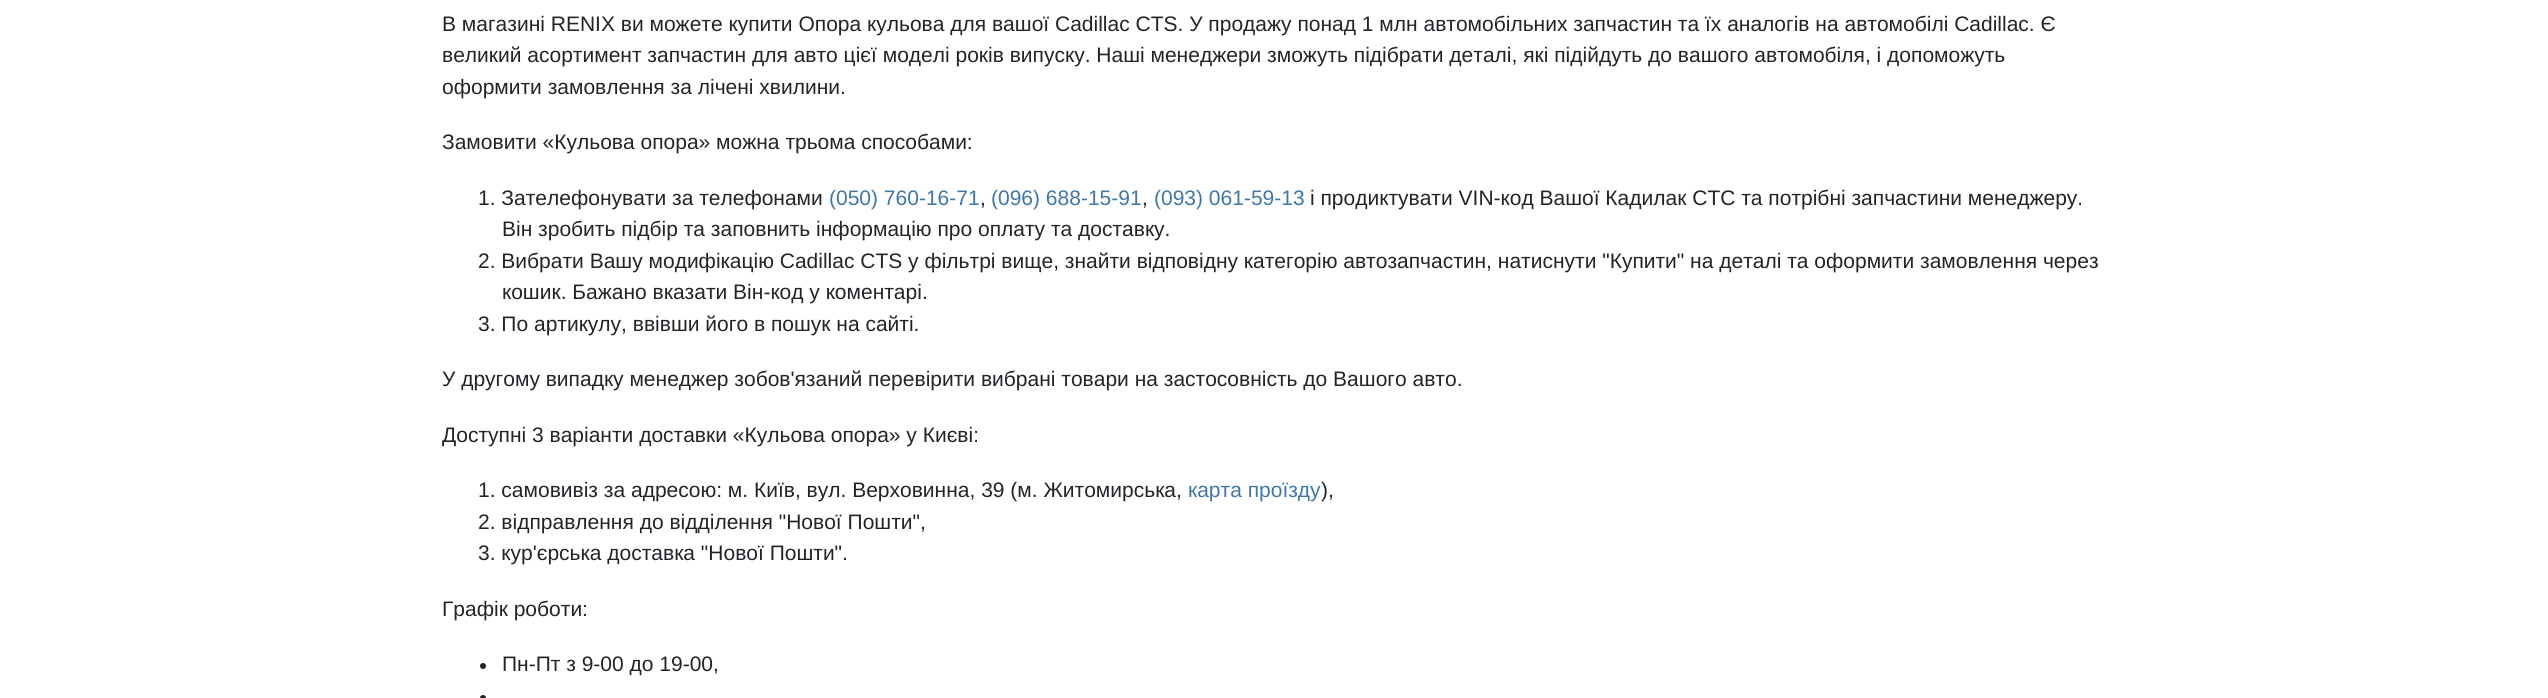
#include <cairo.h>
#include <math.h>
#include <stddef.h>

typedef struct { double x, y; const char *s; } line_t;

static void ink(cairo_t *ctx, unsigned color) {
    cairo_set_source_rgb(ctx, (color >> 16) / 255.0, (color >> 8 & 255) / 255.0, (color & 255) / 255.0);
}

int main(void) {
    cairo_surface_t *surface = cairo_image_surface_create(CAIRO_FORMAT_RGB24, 2548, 698);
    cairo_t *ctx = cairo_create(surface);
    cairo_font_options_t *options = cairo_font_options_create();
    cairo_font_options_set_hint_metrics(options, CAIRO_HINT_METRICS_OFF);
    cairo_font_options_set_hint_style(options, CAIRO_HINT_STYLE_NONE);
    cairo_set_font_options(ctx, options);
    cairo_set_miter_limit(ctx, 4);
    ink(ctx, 0xFFFFFF);
    cairo_paint(ctx);
    cairo_select_font_face(ctx, "Liberation Sans", CAIRO_FONT_SLANT_NORMAL, CAIRO_FONT_WEIGHT_NORMAL);
    cairo_set_font_size(ctx, 21);
    ink(ctx, 0x212529);
    {
        static const line_t items[] = {
            {442, 31, "В магазині RENIX ви можете купити Опора кульова для вашої Cadillac CTS. У продажу понад 1 млн автомобільних запчастин та їх аналогів на автомобілі Cadillac. Є"},
            {442, 62, "великий асортимент запчастин для авто цієї моделі років випуску. Наші менеджери зможуть підібрати деталі, які підійдуть до вашого автомобіля, і допоможуть"},
            {442, 94, "оформити замовлення за лічені хвилини."},
            {442, 149, "Замовити «Кульова опора» можна трьома способами:"},
            {478, 205, "1. Зателефонувати за телефонами"},
        };
        for (size_t i = 0; i < sizeof items / sizeof *items; i++) {
            cairo_move_to(ctx, items[i].x, items[i].y);
            cairo_show_text(ctx, items[i].s);
        }
    }
    ink(ctx, 0x3E77AA);
    cairo_move_to(ctx, 829, 205);
    cairo_show_text(ctx, "(050) 760-16-71");
    ink(ctx, 0x212529);
    cairo_move_to(ctx, 980, 205);
    cairo_show_text(ctx, ",");
    ink(ctx, 0x3E77AA);
    cairo_move_to(ctx, 991, 205);
    cairo_show_text(ctx, "(096) 688-15-91");
    ink(ctx, 0x212529);
    cairo_move_to(ctx, 1142, 205);
    cairo_show_text(ctx, ",");
    ink(ctx, 0x3E77AA);
    cairo_move_to(ctx, 1154, 205);
    cairo_show_text(ctx, "(093) 061-59-13");
    ink(ctx, 0x212529);
    {
        static const line_t items[] = {
            {1310, 205, "і продиктувати VIN-код Вашої Кадилак СТС та потрібні запчастини менеджеру."},
            {502, 236, "Він зробить підбір та заповнить інформацію про оплату та доставку."},
            {478, 268, "2. Вибрати Вашу модифікацію Cadillac CTS у фільтрі вище, знайти відповідну категорію автозапчастин, натиснути \"Купити\" на деталі та оформити замовлення через"},
            {502, 299, "кошик. Бажано вказати Він-код у коментарі."},
            {478, 331, "3. По артикулу, ввівши його в пошук на сайті."},
            {442, 386, "У другому випадку менеджер зобов'язаний перевірити вибрані товари на застосовність до Вашого авто."},
            {442, 442, "Доступні 3 варіанти доставки «Кульова опора» у Києві:"},
            {478, 497, "1. самовивіз за адресою: м. Київ, вул. Верховинна, 39 (м. Житомирська,"},
        };
        for (size_t i = 0; i < sizeof items / sizeof *items; i++) {
            cairo_move_to(ctx, items[i].x, items[i].y);
            cairo_show_text(ctx, items[i].s);
        }
    }
    ink(ctx, 0x3E77AA);
    cairo_move_to(ctx, 1188, 497);
    cairo_show_text(ctx, "карта проїзду");
    ink(ctx, 0x212529);
    {
        static const line_t items[] = {
            {1321, 497, "),"},
            {478, 529, "2. відправлення до відділення \"Нової Пошти\","},
            {478, 560, "3. кур'єрська доставка \"Нової Пошти\"."},
            {442, 616, "Графік роботи:"},
        };
        for (size_t i = 0; i < sizeof items / sizeof *items; i++) {
            cairo_move_to(ctx, items[i].x, items[i].y);
            cairo_show_text(ctx, items[i].s);
        }
    }
    cairo_new_path(ctx);
    cairo_arc(ctx, 483, 666, 3, 0, 2 * M_PI);
    cairo_fill(ctx);
    cairo_move_to(ctx, 502, 671);
    cairo_show_text(ctx, "Пн-Пт з 9-00 до 19-00,");
    cairo_new_path(ctx);
    cairo_arc(ctx, 483, 698, 3, 0, 2 * M_PI);
    cairo_fill(ctx);
    cairo_surface_write_to_png(surface, "image.png");
    cairo_font_options_destroy(options);
    cairo_destroy(ctx);
    cairo_surface_destroy(surface);
    return 0;
}
